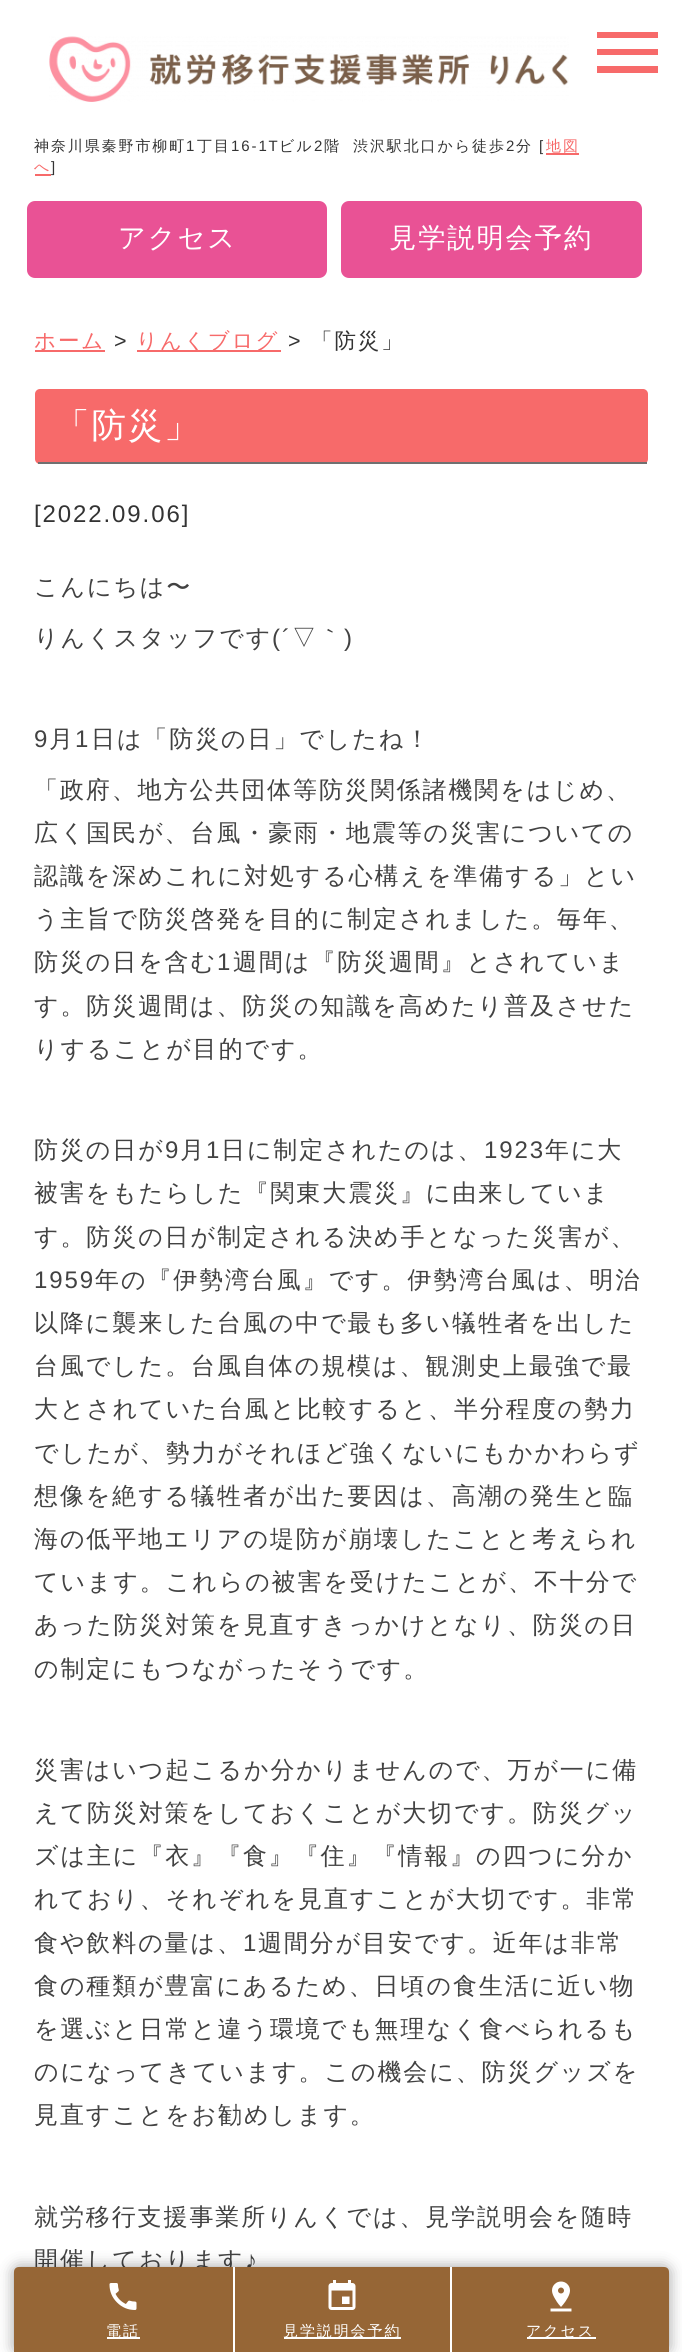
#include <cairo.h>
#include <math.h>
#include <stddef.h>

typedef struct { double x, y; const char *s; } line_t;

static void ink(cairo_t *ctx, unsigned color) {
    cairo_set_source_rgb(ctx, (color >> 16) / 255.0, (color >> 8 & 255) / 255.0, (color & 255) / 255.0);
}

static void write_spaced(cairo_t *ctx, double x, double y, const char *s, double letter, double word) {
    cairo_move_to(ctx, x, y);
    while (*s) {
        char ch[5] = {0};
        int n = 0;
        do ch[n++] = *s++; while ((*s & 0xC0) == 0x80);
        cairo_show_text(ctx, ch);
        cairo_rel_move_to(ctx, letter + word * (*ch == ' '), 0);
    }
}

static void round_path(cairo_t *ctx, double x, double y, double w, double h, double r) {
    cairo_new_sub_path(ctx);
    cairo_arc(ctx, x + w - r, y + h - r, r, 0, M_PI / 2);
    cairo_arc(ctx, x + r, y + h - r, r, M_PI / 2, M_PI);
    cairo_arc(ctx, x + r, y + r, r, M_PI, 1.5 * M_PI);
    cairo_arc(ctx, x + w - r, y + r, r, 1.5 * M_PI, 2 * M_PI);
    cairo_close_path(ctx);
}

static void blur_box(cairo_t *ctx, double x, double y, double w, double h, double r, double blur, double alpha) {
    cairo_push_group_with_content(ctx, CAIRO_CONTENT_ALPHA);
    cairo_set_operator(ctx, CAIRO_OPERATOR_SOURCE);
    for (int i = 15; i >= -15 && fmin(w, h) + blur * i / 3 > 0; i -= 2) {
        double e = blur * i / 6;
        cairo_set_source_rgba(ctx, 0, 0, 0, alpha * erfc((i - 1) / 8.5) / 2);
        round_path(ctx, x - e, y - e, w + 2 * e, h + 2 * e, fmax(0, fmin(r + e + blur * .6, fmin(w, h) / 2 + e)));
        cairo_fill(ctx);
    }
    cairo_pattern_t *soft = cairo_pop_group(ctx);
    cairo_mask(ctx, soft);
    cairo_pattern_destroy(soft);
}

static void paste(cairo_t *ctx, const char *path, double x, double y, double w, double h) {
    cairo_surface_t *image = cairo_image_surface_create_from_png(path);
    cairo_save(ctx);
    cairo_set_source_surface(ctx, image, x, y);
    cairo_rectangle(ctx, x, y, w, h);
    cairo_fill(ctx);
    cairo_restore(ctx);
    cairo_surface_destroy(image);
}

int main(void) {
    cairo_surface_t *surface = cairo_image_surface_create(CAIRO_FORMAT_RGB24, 682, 2352);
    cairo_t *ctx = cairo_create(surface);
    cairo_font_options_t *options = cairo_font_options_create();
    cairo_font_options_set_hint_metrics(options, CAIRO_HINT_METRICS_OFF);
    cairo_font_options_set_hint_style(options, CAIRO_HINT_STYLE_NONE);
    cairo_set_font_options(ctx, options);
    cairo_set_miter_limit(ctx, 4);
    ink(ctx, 0xFFFFFF);
    cairo_paint(ctx);
    ink(ctx, 0xF76A6A);
    cairo_new_path(ctx);
    cairo_move_to(ctx, 597, 32);
    cairo_line_to(ctx, 658, 32);
    cairo_line_to(ctx, 658, 38);
    cairo_line_to(ctx, 597, 38);
    cairo_close_path(ctx);
    cairo_move_to(ctx, 597, 55);
    cairo_line_to(ctx, 597, 49);
    cairo_line_to(ctx, 658, 49);
    cairo_line_to(ctx, 658, 55);
    cairo_close_path(ctx);
    cairo_move_to(ctx, 597, 73);
    cairo_line_to(ctx, 597, 66);
    cairo_line_to(ctx, 658, 66);
    cairo_line_to(ctx, 658, 73);
    cairo_close_path(ctx);
    cairo_fill(ctx);
    paste(ctx, "media/1.png", 49, 36, 520, 66);
    cairo_select_font_face(ctx, "WenQuanYi Zen Hei Medium", CAIRO_FONT_SLANT_NORMAL, CAIRO_FONT_WEIGHT_NORMAL);
    cairo_set_font_size(ctx, 15);
    ink(ctx, 0x333333);
    write_spaced(ctx, 34, 151, "神奈川県秦野市柳町", 1.9, 0);
    cairo_select_font_face(ctx, "Liberation Sans", CAIRO_FONT_SLANT_NORMAL, CAIRO_FONT_WEIGHT_NORMAL);
    write_spaced(ctx, 186, 151, "1", 1.9, 0);
    cairo_select_font_face(ctx, "WenQuanYi Zen Hei Medium", CAIRO_FONT_SLANT_NORMAL, CAIRO_FONT_WEIGHT_NORMAL);
    write_spaced(ctx, 197, 151, "丁目", 1.9, 0);
    cairo_select_font_face(ctx, "Liberation Sans", CAIRO_FONT_SLANT_NORMAL, CAIRO_FONT_WEIGHT_NORMAL);
    write_spaced(ctx, 231, 151, "16‐1T", 1.9, 0);
    cairo_select_font_face(ctx, "WenQuanYi Zen Hei Medium", CAIRO_FONT_SLANT_NORMAL, CAIRO_FONT_WEIGHT_NORMAL);
    write_spaced(ctx, 279, 151, "ビル", 1.9, 0);
    cairo_select_font_face(ctx, "Liberation Sans", CAIRO_FONT_SLANT_NORMAL, CAIRO_FONT_WEIGHT_NORMAL);
    write_spaced(ctx, 314, 151, "2", 1.9, 0);
    cairo_select_font_face(ctx, "WenQuanYi Zen Hei Medium", CAIRO_FONT_SLANT_NORMAL, CAIRO_FONT_WEIGHT_NORMAL);
    write_spaced(ctx, 324, 151, "階", 1.9, 0);
    write_spaced(ctx, 353, 151, "渋沢駅北口から徒歩", 1.9, 0);
    cairo_select_font_face(ctx, "Liberation Sans", CAIRO_FONT_SLANT_NORMAL, CAIRO_FONT_WEIGHT_NORMAL);
    write_spaced(ctx, 506, 151, "2", 1.9, 0);
    cairo_select_font_face(ctx, "WenQuanYi Zen Hei Medium", CAIRO_FONT_SLANT_NORMAL, CAIRO_FONT_WEIGHT_NORMAL);
    write_spaced(ctx, 516, 151, "分", 1.9, 0);
    cairo_select_font_face(ctx, "Liberation Sans", CAIRO_FONT_SLANT_NORMAL, CAIRO_FONT_WEIGHT_NORMAL);
    write_spaced(ctx, 539, 151, "[", 1.9, 0);
    cairo_select_font_face(ctx, "WenQuanYi Zen Hei Medium", CAIRO_FONT_SLANT_NORMAL, CAIRO_FONT_WEIGHT_NORMAL);
    ink(ctx, 0xF76A6A);
    write_spaced(ctx, 546, 151, "地図", 1.9, 0);
    cairo_rectangle(ctx, 546, 153, 33, 2);
    cairo_fill(ctx);
    write_spaced(ctx, 34, 172, "へ", 1.9, 0);
    cairo_rectangle(ctx, 35, 174, 16, 2);
    cairo_fill(ctx);
    cairo_select_font_face(ctx, "Liberation Sans", CAIRO_FONT_SLANT_NORMAL, CAIRO_FONT_WEIGHT_NORMAL);
    ink(ctx, 0x333333);
    write_spaced(ctx, 51, 172, "]", 1.9, 0);
    ink(ctx, 0xE95295);
    round_path(ctx, 27, 201, 300, 77, 8);
    cairo_fill(ctx);
    cairo_select_font_face(ctx, "WenQuanYi Zen Hei Medium", CAIRO_FONT_SLANT_NORMAL, CAIRO_FONT_WEIGHT_NORMAL);
    cairo_set_font_size(ctx, 27.25);
    ink(ctx, 0xFFFFFF);
    write_spaced(ctx, 118, 247, "アクセス", 1.9, 0);
    ink(ctx, 0xE95295);
    round_path(ctx, 341, 201, 301, 77, 8);
    cairo_fill(ctx);
    ink(ctx, 0xFFFFFF);
    write_spaced(ctx, 389, 247, "見学説明会予約", 1.9, 0);
    ink(ctx, 0xF76A6A);
    cairo_rectangle(ctx, 35, 350, 70, 2);
    cairo_fill(ctx);
    cairo_set_font_size(ctx, 21.5);
    write_spaced(ctx, 34, 348, "ホーム", 1.9, 0);
    cairo_select_font_face(ctx, "Liberation Sans", CAIRO_FONT_SLANT_NORMAL, CAIRO_FONT_WEIGHT_NORMAL);
    ink(ctx, 0x333333);
    write_spaced(ctx, 114, 348, ">", 1.9, 0);
    ink(ctx, 0xF76A6A);
    cairo_rectangle(ctx, 137, 350, 144, 2);
    cairo_fill(ctx);
    cairo_select_font_face(ctx, "WenQuanYi Zen Hei Medium", CAIRO_FONT_SLANT_NORMAL, CAIRO_FONT_WEIGHT_NORMAL);
    write_spaced(ctx, 136, 348, "りんくブログ", 1.9, 0);
    cairo_select_font_face(ctx, "Liberation Sans", CAIRO_FONT_SLANT_NORMAL, CAIRO_FONT_WEIGHT_NORMAL);
    ink(ctx, 0x333333);
    write_spaced(ctx, 288, 348, ">", 1.9, 0);
    cairo_select_font_face(ctx, "WenQuanYi Zen Hei Medium", CAIRO_FONT_SLANT_NORMAL, CAIRO_FONT_WEIGHT_NORMAL);
    write_spaced(ctx, 311, 348, "「防災」", 1.9, 0);
    ink(ctx, 0xF76A6A);
    round_path(ctx, 35, 389, 613, 75, 5);
    cairo_fill(ctx);
    ink(ctx, 0x707070);
    cairo_rectangle(ctx, 38, 462, 609, 2);
    cairo_fill(ctx);
    cairo_set_font_size(ctx, 34.5);
    ink(ctx, 0xFFFFFF);
    write_spaced(ctx, 55, 437, "「防災」", 1.9, 0);
    cairo_select_font_face(ctx, "Liberation Sans", CAIRO_FONT_SLANT_NORMAL, CAIRO_FONT_WEIGHT_NORMAL);
    cairo_set_font_size(ctx, 24);
    ink(ctx, 0x333333);
    write_spaced(ctx, 34, 522, "[2022.09.06]", 1.9, 0);
    cairo_select_font_face(ctx, "WenQuanYi Zen Hei Medium", CAIRO_FONT_SLANT_NORMAL, CAIRO_FONT_WEIGHT_NORMAL);
    ink(ctx, 0x424242);
    write_spaced(ctx, 34, 595, "こんにちは〜", 1.9, 0);
    write_spaced(ctx, 34, 646, "りんくスタッフです", 1.9, 0);
    cairo_select_font_face(ctx, "Liberation Sans", CAIRO_FONT_SLANT_NORMAL, CAIRO_FONT_WEIGHT_NORMAL);
    write_spaced(ctx, 272, 646, "(´", 1.9, 0);
    cairo_select_font_face(ctx, "WenQuanYi Zen Hei Medium", CAIRO_FONT_SLANT_NORMAL, CAIRO_FONT_WEIGHT_NORMAL);
    write_spaced(ctx, 292, 646, "▽｀", 1.9, 0);
    cairo_select_font_face(ctx, "Liberation Sans", CAIRO_FONT_SLANT_NORMAL, CAIRO_FONT_WEIGHT_NORMAL);
    write_spaced(ctx, 344, 646, ")", 1.9, 0);
    write_spaced(ctx, 34, 747, "9", 1.9, 0);
    cairo_select_font_face(ctx, "WenQuanYi Zen Hei Medium", CAIRO_FONT_SLANT_NORMAL, CAIRO_FONT_WEIGHT_NORMAL);
    write_spaced(ctx, 49, 747, "月", 1.9, 0);
    cairo_select_font_face(ctx, "Liberation Sans", CAIRO_FONT_SLANT_NORMAL, CAIRO_FONT_WEIGHT_NORMAL);
    write_spaced(ctx, 75, 747, "1", 1.9, 0);
    cairo_select_font_face(ctx, "WenQuanYi Zen Hei Medium", CAIRO_FONT_SLANT_NORMAL, CAIRO_FONT_WEIGHT_NORMAL);
    {
        static const line_t items[] = {
            {91, 747, "日は「防災の日」でしたね！"},
            {34, 798, "「政府、地方公共団体等防災関係諸機関をはじめ、"},
            {34, 841, "広く国民が、台風・豪雨・地震等の災害についての"},
            {34, 884, "認識を深めこれに対処する心構えを準備する」とい"},
            {34, 927, "う主旨で防災啓発を目的に制定されました。毎年、"},
            {34, 970, "防災の日を含む"},
        };
        for (size_t i = 0; i < sizeof items / sizeof *items; i++) {
            write_spaced(ctx, items[i].x, items[i].y, items[i].s, 1.9, 0);
        }
    }
    cairo_select_font_face(ctx, "Liberation Sans", CAIRO_FONT_SLANT_NORMAL, CAIRO_FONT_WEIGHT_NORMAL);
    write_spaced(ctx, 217, 970, "1", 1.9, 0);
    cairo_select_font_face(ctx, "WenQuanYi Zen Hei Medium", CAIRO_FONT_SLANT_NORMAL, CAIRO_FONT_WEIGHT_NORMAL);
    {
        static const line_t items[] = {
            {233, 970, "週間は『防災週間』とされていま"},
            {34, 1014, "す。防災週間は、防災の知識を高めたり普及させた"},
            {34, 1057, "りすることが目的です。"},
            {34, 1158, "防災の日が"},
        };
        for (size_t i = 0; i < sizeof items / sizeof *items; i++) {
            write_spaced(ctx, items[i].x, items[i].y, items[i].s, 1.9, 0);
        }
    }
    cairo_select_font_face(ctx, "Liberation Sans", CAIRO_FONT_SLANT_NORMAL, CAIRO_FONT_WEIGHT_NORMAL);
    write_spaced(ctx, 165, 1158, "9", 1.9, 0);
    cairo_select_font_face(ctx, "WenQuanYi Zen Hei Medium", CAIRO_FONT_SLANT_NORMAL, CAIRO_FONT_WEIGHT_NORMAL);
    write_spaced(ctx, 180, 1158, "月", 1.9, 0);
    cairo_select_font_face(ctx, "Liberation Sans", CAIRO_FONT_SLANT_NORMAL, CAIRO_FONT_WEIGHT_NORMAL);
    write_spaced(ctx, 206, 1158, "1", 1.9, 0);
    cairo_select_font_face(ctx, "WenQuanYi Zen Hei Medium", CAIRO_FONT_SLANT_NORMAL, CAIRO_FONT_WEIGHT_NORMAL);
    write_spaced(ctx, 221, 1158, "日に制定されたのは、", 1.9, 0);
    cairo_select_font_face(ctx, "Liberation Sans", CAIRO_FONT_SLANT_NORMAL, CAIRO_FONT_WEIGHT_NORMAL);
    write_spaced(ctx, 484, 1158, "1923", 1.9, 0);
    cairo_select_font_face(ctx, "WenQuanYi Zen Hei Medium", CAIRO_FONT_SLANT_NORMAL, CAIRO_FONT_WEIGHT_NORMAL);
    {
        static const line_t items[] = {
            {545, 1158, "年に大"},
            {34, 1201, "被害をもたらした『関東大震災』に由来していま"},
            {34, 1245, "す。防災の日が制定される決め手となった災害が、"},
        };
        for (size_t i = 0; i < sizeof items / sizeof *items; i++) {
            write_spaced(ctx, items[i].x, items[i].y, items[i].s, 1.9, 0);
        }
    }
    cairo_select_font_face(ctx, "Liberation Sans", CAIRO_FONT_SLANT_NORMAL, CAIRO_FONT_WEIGHT_NORMAL);
    write_spaced(ctx, 34, 1288, "1959", 1.9, 0);
    cairo_select_font_face(ctx, "WenQuanYi Zen Hei Medium", CAIRO_FONT_SLANT_NORMAL, CAIRO_FONT_WEIGHT_NORMAL);
    {
        static const line_t items[] = {
            {95, 1288, "年の『伊勢湾台風』です。伊勢湾台風は、明治"},
            {34, 1331, "以降に襲来した台風の中で最も多い犠牲者を出した"},
            {34, 1374, "台風でした。台風自体の規模は、観測史上最強で最"},
            {34, 1417, "大とされていた台風と比較すると、半分程度の勢力"},
            {34, 1461, "でしたが、勢力がそれほど強くないにもかかわらず"},
            {34, 1504, "想像を絶する犠牲者が出た要因は、高潮の発生と臨"},
            {34, 1547, "海の低平地エリアの堤防が崩壊したことと考えられ"},
            {34, 1590, "ています。これらの被害を受けたことが、不十分で"},
            {34, 1633, "あった防災対策を見直すきっかけとなり、防災の日"},
            {34, 1677, "の制定にもつながったそうです。"},
            {34, 1778, "災害はいつ起こるか分かりませんので、万が一に備"},
            {34, 1821, "えて防災対策をしておくことが大切です。防災グッ"},
            {34, 1864, "ズは主に『衣』『食』『住』『情報』の四つに分か"},
            {34, 1907, "れており、それぞれを見直すことが大切です。非常"},
            {34, 1951, "食や飲料の量は、"},
        };
        for (size_t i = 0; i < sizeof items / sizeof *items; i++) {
            write_spaced(ctx, items[i].x, items[i].y, items[i].s, 1.9, 0);
        }
    }
    cairo_select_font_face(ctx, "Liberation Sans", CAIRO_FONT_SLANT_NORMAL, CAIRO_FONT_WEIGHT_NORMAL);
    write_spaced(ctx, 243, 1951, "1", 1.9, 0);
    cairo_select_font_face(ctx, "WenQuanYi Zen Hei Medium", CAIRO_FONT_SLANT_NORMAL, CAIRO_FONT_WEIGHT_NORMAL);
    {
        static const line_t items[] = {
            {258, 1951, "週間分が目安です。近年は非常"},
            {34, 1994, "食の種類が豊富にあるため、日頃の食生活に近い物"},
            {34, 2037, "を選ぶと日常と違う環境でも無理なく食べられるも"},
            {34, 2080, "のになってきています。この機会に、防災グッズを"},
            {34, 2123, "見直すことをお勧めします。"},
            {34, 2225, "就労移行支援事業所りんくでは、見学説明会を随時"},
            {34, 2268, "開催しております"},
        };
        for (size_t i = 0; i < sizeof items / sizeof *items; i++) {
            write_spaced(ctx, items[i].x, items[i].y, items[i].s, 1.9, 0);
        }
    }
    cairo_select_font_face(ctx, "Liberation Sans", CAIRO_FONT_SLANT_NORMAL, CAIRO_FONT_WEIGHT_NORMAL);
    write_spaced(ctx, 245, 2268, "♪", 1.9, 0);
    ink(ctx, 0x000000);
    blur_box(ctx, 14, 2267, 655, 85, 5, 7.5, 0.38);
    ink(ctx, 0x966636);
    cairo_new_path(ctx);
    cairo_move_to(ctx, 19, 2267);
    cairo_line_to(ctx, 664, 2267);
    cairo_curve_to(ctx, 667, 2267, 669, 2269, 669, 2272);
    cairo_line_to(ctx, 669, 2352);
    cairo_line_to(ctx, 14, 2352);
    cairo_line_to(ctx, 14, 2272);
    cairo_curve_to(ctx, 14, 2269, 16, 2267, 19, 2267);
    cairo_close_path(ctx);
    cairo_fill(ctx);
    paste(ctx, "media/2.png", 109, 2283, 28, 27);
    ink(ctx, 0xFFFFFF);
    cairo_rectangle(ctx, 107, 2337, 33, 2);
    cairo_fill(ctx);
    cairo_select_font_face(ctx, "WenQuanYi Zen Hei Medium", CAIRO_FONT_SLANT_NORMAL, CAIRO_FONT_WEIGHT_NORMAL);
    cairo_set_font_size(ctx, 15);
    write_spaced(ctx, 106, 2336, "電話", 1.9, 0);
    cairo_rectangle(ctx, 233, 2267, 2, 85);
    cairo_fill(ctx);
    paste(ctx, "media/3.png", 328, 2280, 28, 30);
    cairo_rectangle(ctx, 284, 2337, 117, 2);
    cairo_fill(ctx);
    write_spaced(ctx, 283, 2336, "見学説明会予約", 1.9, 0);
    cairo_rectangle(ctx, 450, 2267, 2, 85);
    cairo_fill(ctx);
    paste(ctx, "media/4.png", 550, 2281, 22, 31);
    cairo_rectangle(ctx, 527, 2337, 69, 2);
    cairo_fill(ctx);
    write_spaced(ctx, 526, 2336, "アクセス", 1.9, 0);
    cairo_surface_write_to_png(surface, "image.png");
    cairo_font_options_destroy(options);
    cairo_destroy(ctx);
    cairo_surface_destroy(surface);
    return 0;
}
